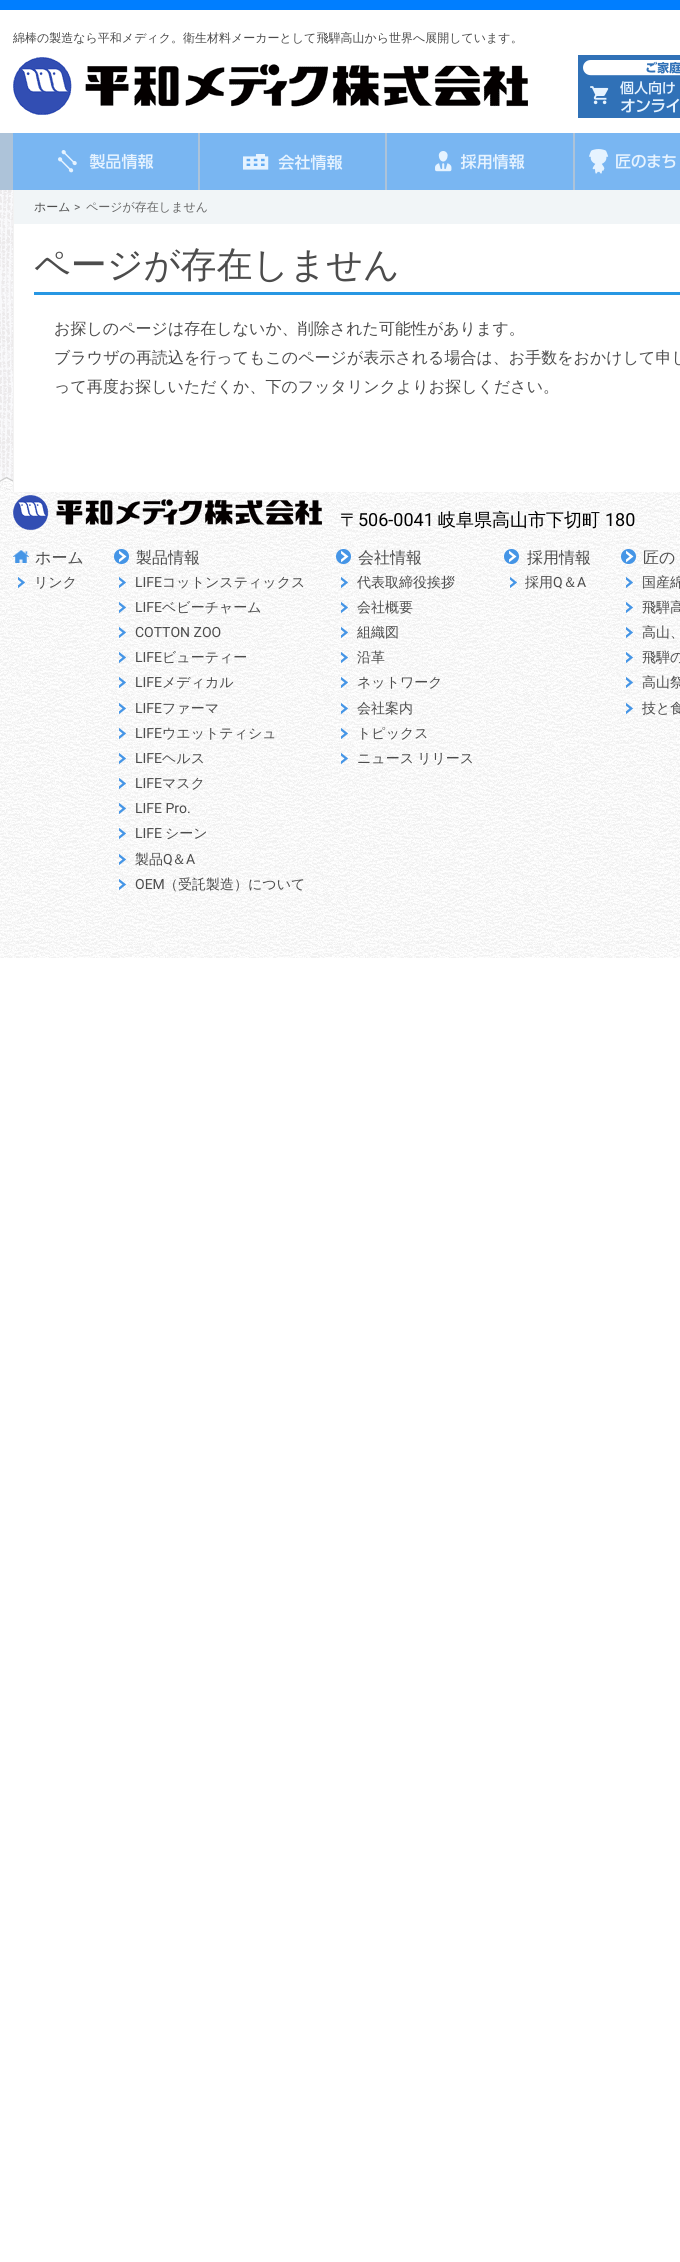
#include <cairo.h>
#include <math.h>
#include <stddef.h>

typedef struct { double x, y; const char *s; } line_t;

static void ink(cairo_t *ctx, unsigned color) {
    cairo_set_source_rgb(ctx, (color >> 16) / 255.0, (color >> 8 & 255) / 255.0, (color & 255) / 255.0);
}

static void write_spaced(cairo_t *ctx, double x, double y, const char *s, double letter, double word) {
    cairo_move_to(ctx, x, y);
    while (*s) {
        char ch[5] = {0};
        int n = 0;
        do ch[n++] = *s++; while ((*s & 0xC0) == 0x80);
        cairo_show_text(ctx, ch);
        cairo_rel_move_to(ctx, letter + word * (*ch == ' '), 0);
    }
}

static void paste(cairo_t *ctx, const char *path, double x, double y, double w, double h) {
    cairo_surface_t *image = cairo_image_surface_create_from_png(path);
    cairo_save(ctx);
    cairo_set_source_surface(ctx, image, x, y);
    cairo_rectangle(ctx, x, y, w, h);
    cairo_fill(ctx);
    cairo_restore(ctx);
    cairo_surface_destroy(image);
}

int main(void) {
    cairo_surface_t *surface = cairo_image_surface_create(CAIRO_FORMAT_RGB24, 680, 2262);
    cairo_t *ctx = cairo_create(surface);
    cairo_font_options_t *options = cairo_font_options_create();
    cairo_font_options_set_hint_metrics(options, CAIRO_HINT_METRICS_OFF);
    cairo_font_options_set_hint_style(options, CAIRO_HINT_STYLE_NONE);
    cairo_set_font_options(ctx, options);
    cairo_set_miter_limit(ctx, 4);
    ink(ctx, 0xFFFFFF);
    cairo_paint(ctx);
    ink(ctx, 0x007EFF);
    cairo_rectangle(ctx, 0, 0, 680, 10);
    cairo_fill(ctx);
    cairo_select_font_face(ctx, "WenQuanYi Zen Hei Medium", CAIRO_FONT_SLANT_NORMAL, CAIRO_FONT_WEIGHT_NORMAL);
    cairo_set_font_size(ctx, 12);
    ink(ctx, 0x4C4C4C);
    cairo_move_to(ctx, 13, 42);
    cairo_show_text(ctx, "綿棒の製造なら平和メディク。衛生材料メーカーとして飛騨高山から世界へ展開しています。");
    paste(ctx, "media/1.png", 13, 57, 515, 58);
    ink(ctx, 0x3071B7);
    cairo_rectangle(ctx, 578, 55, 102, 63);
    cairo_fill(ctx);
    paste(ctx, "media/2.png", 583, 60, 97, 53);
    ink(ctx, 0xADC3D9);
    cairo_rectangle(ctx, 0, 133, 575, 57);
    cairo_fill(ctx);
    ink(ctx, 0x79B6F2);
    cairo_rectangle(ctx, 13, 133, 185, 57);
    cairo_fill(ctx);
    paste(ctx, "media/3.png", 58, 150, 96, 23);
    cairo_rectangle(ctx, 200, 133, 185, 57);
    cairo_fill(ctx);
    paste(ctx, "media/4.png", 243, 154, 100, 16);
    cairo_rectangle(ctx, 387, 133, 186, 57);
    cairo_fill(ctx);
    paste(ctx, "media/5.png", 435, 151, 90, 21);
    cairo_rectangle(ctx, 575, 133, 105, 57);
    cairo_fill(ctx);
    paste(ctx, "media/6.png", 589, 149, 87, 25);
    paste(ctx, "media/7.png", 0, 190, 13, 291);
    ink(ctx, 0xF2F2F2);
    cairo_rectangle(ctx, 13, 190, 1, 302);
    cairo_fill(ctx);
    ink(ctx, 0xF1F5F7);
    cairo_rectangle(ctx, 14, 190, 666, 34);
    cairo_fill(ctx);
    ink(ctx, 0x4C4C4C);
    cairo_move_to(ctx, 34, 211);
    cairo_show_text(ctx, "ホーム");
    cairo_select_font_face(ctx, "Roboto", CAIRO_FONT_SLANT_NORMAL, CAIRO_FONT_WEIGHT_NORMAL);
    ink(ctx, 0x666666);
    cairo_move_to(ctx, 74, 211);
    cairo_show_text(ctx, ">");
    cairo_select_font_face(ctx, "WenQuanYi Zen Hei Medium", CAIRO_FONT_SLANT_NORMAL, CAIRO_FONT_WEIGHT_NORMAL);
    cairo_move_to(ctx, 86, 211);
    cairo_show_text(ctx, "ページが存在しません");
    ink(ctx, 0x2897E3);
    cairo_rectangle(ctx, 34, 292, 646, 3);
    cairo_fill(ctx);
    cairo_set_font_size(ctx, 36);
    ink(ctx, 0x4C4C4C);
    cairo_move_to(ctx, 34, 277);
    cairo_show_text(ctx, "ページが存在しません");
    cairo_set_font_size(ctx, 16);
    {
        static const line_t items[] = {
            {54, 334, "お探しのページは存在しないか、削除された可能性があります。"},
            {54, 363, "ブラウザの再読込を行ってもこのページが表示される場合は、お手数をおかけして申し"},
            {54, 392, "って再度お探しいただくか、下のフッタリンクよりお探しください。"},
        };
        for (size_t i = 0; i < sizeof items / sizeof *items; i++) {
            cairo_move_to(ctx, items[i].x, items[i].y);
            cairo_show_text(ctx, items[i].s);
        }
    }
    paste(ctx, "media/8.png", 0, 477, 13, 15);
    paste(ctx, "media/9.png", 0, 492, 680, 466);
    paste(ctx, "media/10.png", 13, 495, 309, 35);
    cairo_set_font_size(ctx, 18);
    ink(ctx, 0x000000);
    cairo_move_to(ctx, 340, 526);
    cairo_show_text(ctx, "〒");
    cairo_select_font_face(ctx, "Roboto", CAIRO_FONT_SLANT_NORMAL, CAIRO_FONT_WEIGHT_NORMAL);
    cairo_move_to(ctx, 358, 526);
    cairo_show_text(ctx, "506-0041");
    cairo_select_font_face(ctx, "WenQuanYi Zen Hei Medium", CAIRO_FONT_SLANT_NORMAL, CAIRO_FONT_WEIGHT_NORMAL);
    cairo_move_to(ctx, 438, 526);
    cairo_show_text(ctx, "岐阜県高山市下切町");
    cairo_select_font_face(ctx, "Roboto", CAIRO_FONT_SLANT_NORMAL, CAIRO_FONT_WEIGHT_NORMAL);
    cairo_move_to(ctx, 605, 526);
    cairo_show_text(ctx, "180");
    paste(ctx, "media/11.png", 13, 550, 16, 13);
    cairo_select_font_face(ctx, "WenQuanYi Zen Hei Medium", CAIRO_FONT_SLANT_NORMAL, CAIRO_FONT_WEIGHT_NORMAL);
    cairo_set_font_size(ctx, 16);
    ink(ctx, 0x4C4C4C);
    cairo_move_to(ctx, 35, 563);
    cairo_show_text(ctx, "ホーム");
    paste(ctx, "media/12.png", 18, 577, 7, 11);
    cairo_set_font_size(ctx, 14);
    cairo_move_to(ctx, 34, 587);
    cairo_show_text(ctx, "リンク");
    paste(ctx, "media/13.png", 114, 549, 15, 15);
    cairo_set_font_size(ctx, 16);
    cairo_move_to(ctx, 136, 563);
    cairo_show_text(ctx, "製品情報");
    paste(ctx, "media/14.png", 119, 577, 7, 11);
    cairo_select_font_face(ctx, "Roboto", CAIRO_FONT_SLANT_NORMAL, CAIRO_FONT_WEIGHT_NORMAL);
    cairo_set_font_size(ctx, 14);
    cairo_move_to(ctx, 135, 587);
    cairo_show_text(ctx, "LIFE");
    cairo_select_font_face(ctx, "WenQuanYi Zen Hei Medium", CAIRO_FONT_SLANT_NORMAL, CAIRO_FONT_WEIGHT_NORMAL);
    cairo_move_to(ctx, 162, 587);
    cairo_show_text(ctx, "コットンスティックス");
    paste(ctx, "media/15.png", 119, 602, 7, 11);
    cairo_select_font_face(ctx, "Roboto", CAIRO_FONT_SLANT_NORMAL, CAIRO_FONT_WEIGHT_NORMAL);
    cairo_move_to(ctx, 135, 612);
    cairo_show_text(ctx, "LIFE");
    cairo_select_font_face(ctx, "WenQuanYi Zen Hei Medium", CAIRO_FONT_SLANT_NORMAL, CAIRO_FONT_WEIGHT_NORMAL);
    cairo_move_to(ctx, 162, 612);
    cairo_show_text(ctx, "ベビーチャーム");
    paste(ctx, "media/16.png", 119, 627, 7, 11);
    cairo_select_font_face(ctx, "Roboto", CAIRO_FONT_SLANT_NORMAL, CAIRO_FONT_WEIGHT_NORMAL);
    cairo_move_to(ctx, 135, 637);
    cairo_show_text(ctx, "COTTON ZOO");
    paste(ctx, "media/17.png", 119, 652, 7, 11);
    cairo_move_to(ctx, 135, 662);
    cairo_show_text(ctx, "LIFE");
    cairo_select_font_face(ctx, "WenQuanYi Zen Hei Medium", CAIRO_FONT_SLANT_NORMAL, CAIRO_FONT_WEIGHT_NORMAL);
    cairo_move_to(ctx, 162, 662);
    cairo_show_text(ctx, "ビューティー");
    paste(ctx, "media/18.png", 119, 677, 7, 11);
    cairo_select_font_face(ctx, "Roboto", CAIRO_FONT_SLANT_NORMAL, CAIRO_FONT_WEIGHT_NORMAL);
    cairo_move_to(ctx, 135, 687);
    cairo_show_text(ctx, "LIFE");
    cairo_select_font_face(ctx, "WenQuanYi Zen Hei Medium", CAIRO_FONT_SLANT_NORMAL, CAIRO_FONT_WEIGHT_NORMAL);
    cairo_move_to(ctx, 162, 687);
    cairo_show_text(ctx, "メディカル");
    paste(ctx, "media/19.png", 119, 703, 7, 11);
    cairo_select_font_face(ctx, "Roboto", CAIRO_FONT_SLANT_NORMAL, CAIRO_FONT_WEIGHT_NORMAL);
    cairo_move_to(ctx, 135, 713);
    cairo_show_text(ctx, "LIFE");
    cairo_select_font_face(ctx, "WenQuanYi Zen Hei Medium", CAIRO_FONT_SLANT_NORMAL, CAIRO_FONT_WEIGHT_NORMAL);
    cairo_move_to(ctx, 162, 713);
    cairo_show_text(ctx, "ファーマ");
    paste(ctx, "media/20.png", 119, 728, 7, 11);
    cairo_select_font_face(ctx, "Roboto", CAIRO_FONT_SLANT_NORMAL, CAIRO_FONT_WEIGHT_NORMAL);
    cairo_move_to(ctx, 135, 738);
    cairo_show_text(ctx, "LIFE");
    cairo_select_font_face(ctx, "WenQuanYi Zen Hei Medium", CAIRO_FONT_SLANT_NORMAL, CAIRO_FONT_WEIGHT_NORMAL);
    cairo_move_to(ctx, 162, 738);
    cairo_show_text(ctx, "ウエットティシュ");
    paste(ctx, "media/21.png", 119, 753, 7, 11);
    cairo_select_font_face(ctx, "Roboto", CAIRO_FONT_SLANT_NORMAL, CAIRO_FONT_WEIGHT_NORMAL);
    cairo_move_to(ctx, 135, 763);
    cairo_show_text(ctx, "LIFE");
    cairo_select_font_face(ctx, "WenQuanYi Zen Hei Medium", CAIRO_FONT_SLANT_NORMAL, CAIRO_FONT_WEIGHT_NORMAL);
    cairo_move_to(ctx, 162, 763);
    cairo_show_text(ctx, "ヘルス");
    paste(ctx, "media/22.png", 119, 778, 7, 11);
    cairo_select_font_face(ctx, "Roboto", CAIRO_FONT_SLANT_NORMAL, CAIRO_FONT_WEIGHT_NORMAL);
    cairo_move_to(ctx, 135, 788);
    cairo_show_text(ctx, "LIFE");
    cairo_select_font_face(ctx, "WenQuanYi Zen Hei Medium", CAIRO_FONT_SLANT_NORMAL, CAIRO_FONT_WEIGHT_NORMAL);
    cairo_move_to(ctx, 162, 788);
    cairo_show_text(ctx, "マスク");
    paste(ctx, "media/23.png", 119, 803, 7, 11);
    cairo_select_font_face(ctx, "Roboto", CAIRO_FONT_SLANT_NORMAL, CAIRO_FONT_WEIGHT_NORMAL);
    cairo_move_to(ctx, 135, 813);
    cairo_show_text(ctx, "LIFE Pro.");
    paste(ctx, "media/24.png", 119, 828, 7, 11);
    cairo_move_to(ctx, 135, 838);
    cairo_show_text(ctx, "LIFE");
    cairo_select_font_face(ctx, "WenQuanYi Zen Hei Medium", CAIRO_FONT_SLANT_NORMAL, CAIRO_FONT_WEIGHT_NORMAL);
    cairo_move_to(ctx, 165, 838);
    cairo_show_text(ctx, "シーン");
    paste(ctx, "media/25.png", 119, 854, 7, 11);
    cairo_move_to(ctx, 135, 864);
    cairo_show_text(ctx, "製品");
    cairo_select_font_face(ctx, "Roboto", CAIRO_FONT_SLANT_NORMAL, CAIRO_FONT_WEIGHT_NORMAL);
    cairo_move_to(ctx, 163, 864);
    cairo_show_text(ctx, "Q");
    cairo_select_font_face(ctx, "WenQuanYi Zen Hei Medium", CAIRO_FONT_SLANT_NORMAL, CAIRO_FONT_WEIGHT_NORMAL);
    cairo_move_to(ctx, 172, 864);
    cairo_show_text(ctx, "＆");
    cairo_select_font_face(ctx, "Roboto", CAIRO_FONT_SLANT_NORMAL, CAIRO_FONT_WEIGHT_NORMAL);
    cairo_move_to(ctx, 186, 864);
    cairo_show_text(ctx, "A");
    paste(ctx, "media/26.png", 119, 879, 7, 11);
    cairo_move_to(ctx, 135, 889);
    cairo_show_text(ctx, "OEM");
    cairo_select_font_face(ctx, "WenQuanYi Zen Hei Medium", CAIRO_FONT_SLANT_NORMAL, CAIRO_FONT_WEIGHT_NORMAL);
    cairo_move_to(ctx, 164, 889);
    cairo_show_text(ctx, "（受託製造）について");
    paste(ctx, "media/27.png", 336, 549, 15, 15);
    cairo_set_font_size(ctx, 16);
    cairo_move_to(ctx, 358, 563);
    cairo_show_text(ctx, "会社情報");
    paste(ctx, "media/28.png", 341, 577, 7, 11);
    cairo_set_font_size(ctx, 14);
    cairo_move_to(ctx, 357, 587);
    cairo_show_text(ctx, "代表取締役挨拶");
    paste(ctx, "media/29.png", 341, 602, 7, 11);
    cairo_move_to(ctx, 357, 612);
    cairo_show_text(ctx, "会社概要");
    paste(ctx, "media/30.png", 341, 627, 7, 11);
    cairo_move_to(ctx, 357, 637);
    cairo_show_text(ctx, "組織図");
    paste(ctx, "media/31.png", 341, 652, 7, 11);
    cairo_move_to(ctx, 357, 662);
    cairo_show_text(ctx, "沿革");
    paste(ctx, "media/32.png", 341, 677, 7, 11);
    cairo_move_to(ctx, 357, 687);
    cairo_show_text(ctx, "ネットワーク");
    paste(ctx, "media/33.png", 341, 703, 7, 11);
    cairo_move_to(ctx, 357, 713);
    cairo_show_text(ctx, "会社案内");
    paste(ctx, "media/34.png", 341, 728, 7, 11);
    cairo_move_to(ctx, 357, 738);
    cairo_show_text(ctx, "トピックス");
    paste(ctx, "media/35.png", 341, 753, 7, 11);
    write_spaced(ctx, 357, 763, "ニュース リリース", 0, -1);
    paste(ctx, "media/36.png", 504, 549, 15, 15);
    cairo_set_font_size(ctx, 16);
    cairo_move_to(ctx, 527, 563);
    cairo_show_text(ctx, "採用情報");
    paste(ctx, "media/37.png", 510, 577, 7, 11);
    cairo_set_font_size(ctx, 14);
    cairo_move_to(ctx, 525, 587);
    cairo_show_text(ctx, "採用");
    cairo_select_font_face(ctx, "Roboto", CAIRO_FONT_SLANT_NORMAL, CAIRO_FONT_WEIGHT_NORMAL);
    cairo_move_to(ctx, 553, 587);
    cairo_show_text(ctx, "Q");
    cairo_select_font_face(ctx, "WenQuanYi Zen Hei Medium", CAIRO_FONT_SLANT_NORMAL, CAIRO_FONT_WEIGHT_NORMAL);
    cairo_move_to(ctx, 563, 587);
    cairo_show_text(ctx, "＆");
    cairo_select_font_face(ctx, "Roboto", CAIRO_FONT_SLANT_NORMAL, CAIRO_FONT_WEIGHT_NORMAL);
    cairo_move_to(ctx, 577, 587);
    cairo_show_text(ctx, "A");
    paste(ctx, "media/38.png", 621, 549, 15, 15);
    cairo_select_font_face(ctx, "WenQuanYi Zen Hei Medium", CAIRO_FONT_SLANT_NORMAL, CAIRO_FONT_WEIGHT_NORMAL);
    cairo_set_font_size(ctx, 16);
    cairo_move_to(ctx, 643, 563);
    cairo_show_text(ctx, "匠の");
    paste(ctx, "media/39.png", 626, 577, 7, 11);
    cairo_set_font_size(ctx, 14);
    cairo_move_to(ctx, 642, 587);
    cairo_show_text(ctx, "国産綿");
    paste(ctx, "media/40.png", 626, 602, 7, 11);
    cairo_move_to(ctx, 642, 612);
    cairo_show_text(ctx, "飛騨高");
    paste(ctx, "media/41.png", 626, 627, 7, 11);
    cairo_move_to(ctx, 642, 637);
    cairo_show_text(ctx, "高山、");
    paste(ctx, "media/42.png", 626, 652, 7, 11);
    cairo_move_to(ctx, 642, 662);
    cairo_show_text(ctx, "飛騨の");
    paste(ctx, "media/43.png", 626, 677, 7, 11);
    cairo_move_to(ctx, 642, 687);
    cairo_show_text(ctx, "高山祭");
    paste(ctx, "media/44.png", 626, 703, 7, 11);
    cairo_move_to(ctx, 642, 713);
    cairo_show_text(ctx, "技と食");
    cairo_surface_write_to_png(surface, "image.png");
    cairo_font_options_destroy(options);
    cairo_destroy(ctx);
    cairo_surface_destroy(surface);
    return 0;
}
